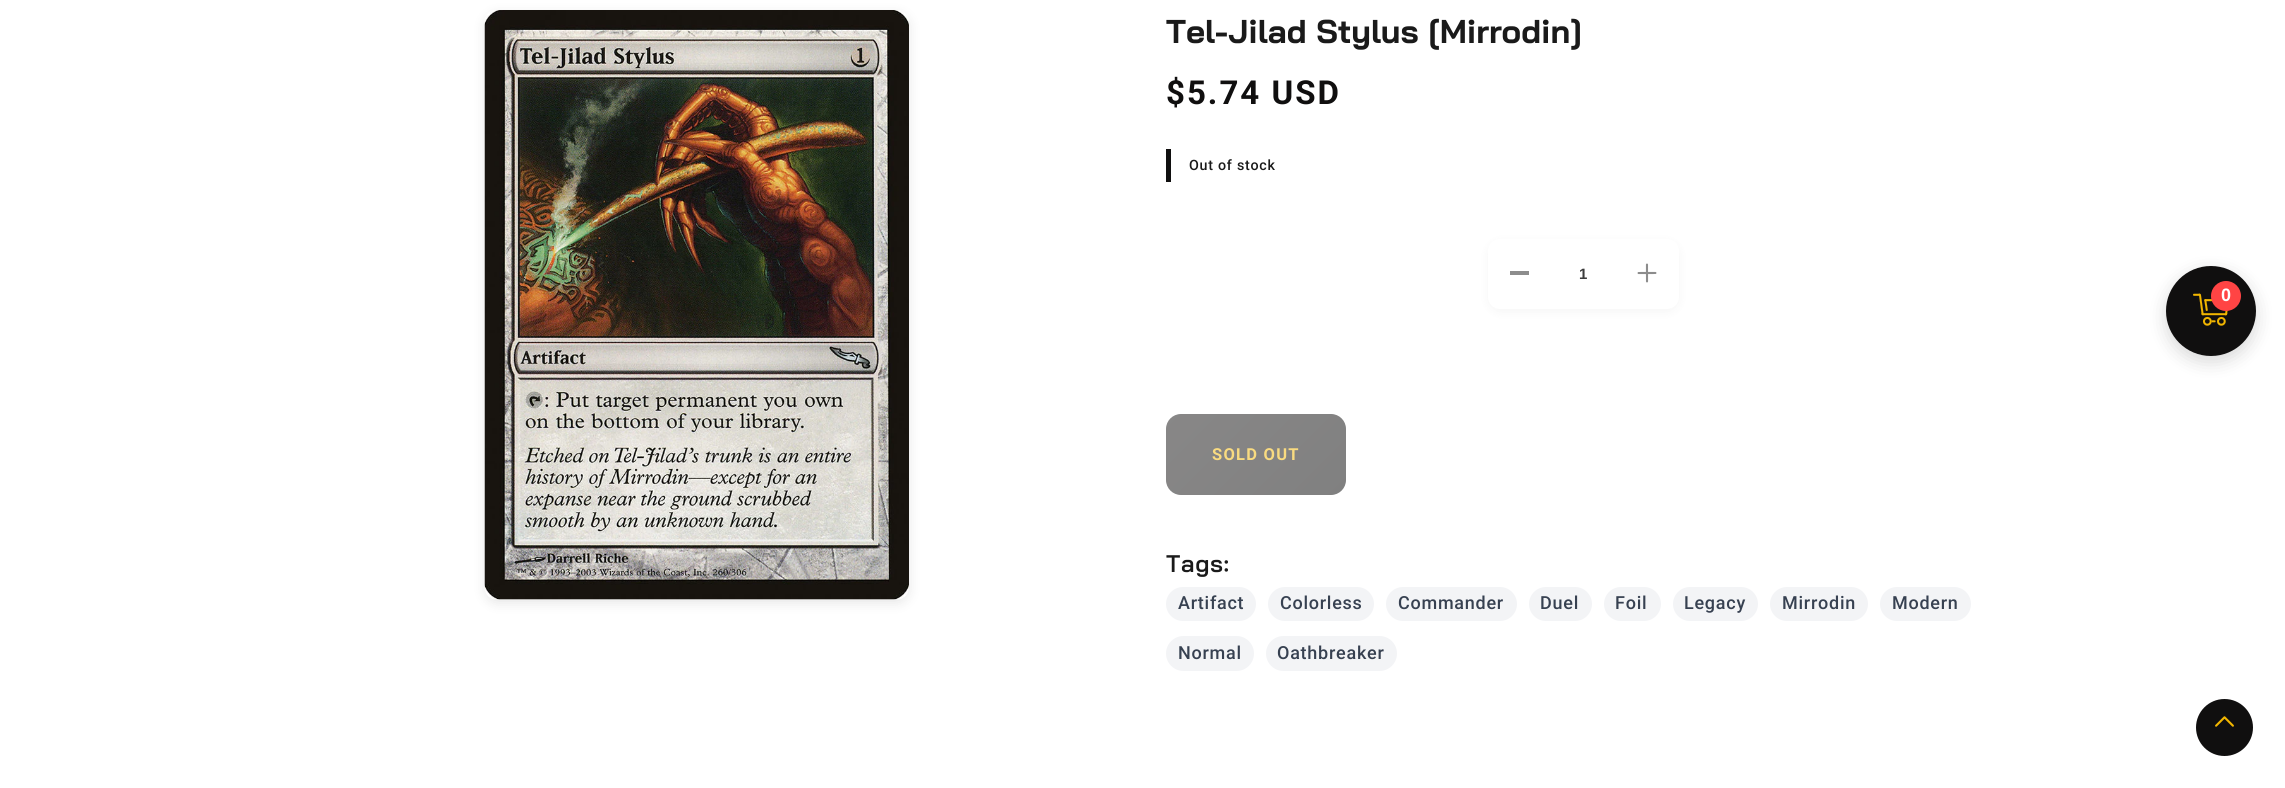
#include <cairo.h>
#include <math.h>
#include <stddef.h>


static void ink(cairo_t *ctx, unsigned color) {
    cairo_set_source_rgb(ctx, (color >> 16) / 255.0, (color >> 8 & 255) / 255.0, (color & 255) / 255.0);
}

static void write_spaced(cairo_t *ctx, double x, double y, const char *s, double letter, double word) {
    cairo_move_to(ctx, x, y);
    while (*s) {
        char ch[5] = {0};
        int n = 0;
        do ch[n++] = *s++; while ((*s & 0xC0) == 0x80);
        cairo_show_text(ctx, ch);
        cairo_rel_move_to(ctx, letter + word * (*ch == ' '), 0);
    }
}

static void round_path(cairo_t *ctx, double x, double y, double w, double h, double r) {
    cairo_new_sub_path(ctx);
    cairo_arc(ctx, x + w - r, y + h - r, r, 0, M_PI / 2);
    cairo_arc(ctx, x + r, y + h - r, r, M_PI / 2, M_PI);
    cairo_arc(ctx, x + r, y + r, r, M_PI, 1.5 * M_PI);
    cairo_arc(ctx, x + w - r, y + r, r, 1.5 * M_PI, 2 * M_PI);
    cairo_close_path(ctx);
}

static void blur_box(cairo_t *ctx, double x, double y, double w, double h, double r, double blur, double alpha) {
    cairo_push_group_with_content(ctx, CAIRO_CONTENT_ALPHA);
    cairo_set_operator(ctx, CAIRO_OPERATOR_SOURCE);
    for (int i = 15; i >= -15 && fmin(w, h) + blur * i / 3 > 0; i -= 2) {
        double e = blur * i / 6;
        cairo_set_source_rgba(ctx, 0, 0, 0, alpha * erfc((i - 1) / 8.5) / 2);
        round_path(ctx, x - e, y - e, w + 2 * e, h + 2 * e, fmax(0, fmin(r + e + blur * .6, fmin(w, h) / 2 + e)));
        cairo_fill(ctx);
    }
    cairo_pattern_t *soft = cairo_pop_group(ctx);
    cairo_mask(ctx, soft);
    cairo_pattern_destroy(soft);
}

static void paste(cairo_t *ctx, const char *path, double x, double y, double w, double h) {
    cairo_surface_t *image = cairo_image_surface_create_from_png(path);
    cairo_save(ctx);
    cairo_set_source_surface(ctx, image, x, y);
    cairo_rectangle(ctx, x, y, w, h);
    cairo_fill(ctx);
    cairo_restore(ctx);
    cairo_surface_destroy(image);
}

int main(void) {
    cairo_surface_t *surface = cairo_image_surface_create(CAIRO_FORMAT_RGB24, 2285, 788);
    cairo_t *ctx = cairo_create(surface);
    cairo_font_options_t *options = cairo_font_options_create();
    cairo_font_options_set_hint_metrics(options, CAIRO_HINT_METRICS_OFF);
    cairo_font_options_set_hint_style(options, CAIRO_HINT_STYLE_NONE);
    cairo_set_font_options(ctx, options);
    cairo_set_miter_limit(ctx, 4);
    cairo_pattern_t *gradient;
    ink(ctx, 0xFFFFFF);
    cairo_paint(ctx);
    ink(ctx, 0x000000);
    blur_box(ctx, 485, 14, 424, 589, 12, 6, 0.1);
    paste(ctx, "media/1.png", 484, 10, 425, 590);
    cairo_select_font_face(ctx, "Bai Jamjuree", CAIRO_FONT_SLANT_NORMAL, CAIRO_FONT_WEIGHT_BOLD);
    cairo_set_font_size(ctx, 33);
    ink(ctx, 0x1A1A1A);
    cairo_move_to(ctx, 1166, 43);
    cairo_show_text(ctx, "Tel-Jilad Stylus [Mirrodin]");
    cairo_select_font_face(ctx, "Roboto", CAIRO_FONT_SLANT_NORMAL, CAIRO_FONT_WEIGHT_BOLD);
    ink(ctx, 0x100F0F);
    write_spaced(ctx, 1166, 104, "$5.74 USD", 2, 0);
    cairo_rectangle(ctx, 1166, 149, 5, 33);
    cairo_fill(ctx);
    cairo_select_font_face(ctx, "Roboto Medium", CAIRO_FONT_SLANT_NORMAL, CAIRO_FONT_WEIGHT_NORMAL);
    cairo_set_font_size(ctx, 14.25);
    ink(ctx, 0x1A1A1A);
    write_spaced(ctx, 1189, 170, "Out of stock", 0.75, 0);
    ink(ctx, 0x000000);
    blur_box(ctx, 1488, 242, 191, 70, 12, 6, 0.04);
    ink(ctx, 0xFFFFFF);
    round_path(ctx, 1488, 239, 191, 70, 12);
    cairo_fill(ctx);
    ink(ctx, 0x8D8D8D);
    cairo_rectangle(ctx, 1510, 271, 19, 4);
    cairo_fill(ctx);
    cairo_select_font_face(ctx, "Liberation Sans", CAIRO_FONT_SLANT_NORMAL, CAIRO_FONT_WEIGHT_BOLD);
    cairo_set_font_size(ctx, 15);
    ink(ctx, 0x3C3C3C);
    cairo_move_to(ctx, 1579, 279);
    cairo_show_text(ctx, "1");
    paste(ctx, "media/2.png", 1637, 263, 20, 20);
    gradient = cairo_pattern_create_linear(1190, 389, 1321, 520);
    cairo_pattern_add_color_stop_rgba(gradient, 0, 0.533, 0.529, 0.529, 1);
    cairo_pattern_add_color_stop_rgba(gradient, 1, 0.502, 0.502, 0.502, 1);
    cairo_set_source(ctx, gradient);
    cairo_pattern_destroy(gradient);
    round_path(ctx, 1166, 414, 180, 81, 15);
    cairo_fill(ctx);
    cairo_select_font_face(ctx, "Roboto", CAIRO_FONT_SLANT_NORMAL, CAIRO_FONT_WEIGHT_BOLD);
    cairo_set_font_size(ctx, 16.5);
    ink(ctx, 0xF9DB80);
    write_spaced(ctx, 1212, 460, "SOLD OUT", 1.25, 0);
    cairo_select_font_face(ctx, "Bai Jamjuree SemiBold", CAIRO_FONT_SLANT_NORMAL, CAIRO_FONT_WEIGHT_NORMAL);
    cairo_set_font_size(ctx, 24);
    ink(ctx, 0x1A1A1A);
    write_spaced(ctx, 1166, 572, "Tags:", 0.5, 0);
    ink(ctx, 0xF3F4F6);
    round_path(ctx, 1166, 587, 90, 34, 17);
    cairo_fill(ctx);
    cairo_select_font_face(ctx, "Roboto Medium", CAIRO_FONT_SLANT_NORMAL, CAIRO_FONT_WEIGHT_NORMAL);
    cairo_set_font_size(ctx, 18);
    ink(ctx, 0x374151);
    write_spaced(ctx, 1178, 609, "Artifact", 0.75, 0);
    ink(ctx, 0xF3F4F6);
    round_path(ctx, 1268, 587, 106, 34, 17);
    cairo_fill(ctx);
    ink(ctx, 0x374151);
    write_spaced(ctx, 1280, 609, "Colorless", 0.75, 0);
    ink(ctx, 0xF3F4F6);
    round_path(ctx, 1386, 587, 131, 34, 17);
    cairo_fill(ctx);
    ink(ctx, 0x374151);
    write_spaced(ctx, 1398, 609, "Commander", 0.75, 0);
    ink(ctx, 0xF3F4F6);
    round_path(ctx, 1529, 587, 63, 34, 17);
    cairo_fill(ctx);
    ink(ctx, 0x374151);
    write_spaced(ctx, 1540, 609, "Duel", 0.75, 0);
    ink(ctx, 0xF3F4F6);
    round_path(ctx, 1604, 587, 57, 34, 17);
    cairo_fill(ctx);
    ink(ctx, 0x374151);
    write_spaced(ctx, 1615, 609, "Foil", 0.75, 0);
    ink(ctx, 0xF3F4F6);
    round_path(ctx, 1673, 587, 85, 34, 17);
    cairo_fill(ctx);
    ink(ctx, 0x374151);
    write_spaced(ctx, 1684, 609, "Legacy", 0.75, 0);
    ink(ctx, 0xF3F4F6);
    round_path(ctx, 1770, 587, 98, 34, 17);
    cairo_fill(ctx);
    ink(ctx, 0x374151);
    write_spaced(ctx, 1782, 609, "Mirrodin", 0.75, 0);
    ink(ctx, 0xF3F4F6);
    round_path(ctx, 1880, 587, 91, 34, 17);
    cairo_fill(ctx);
    ink(ctx, 0x374151);
    write_spaced(ctx, 1892, 609, "Modern", 0.75, 0);
    ink(ctx, 0xF3F4F6);
    round_path(ctx, 1166, 636, 88, 35, 17.5);
    cairo_fill(ctx);
    ink(ctx, 0x374151);
    write_spaced(ctx, 1178, 659, "Normal", 0.75, 0);
    ink(ctx, 0xF3F4F6);
    round_path(ctx, 1266, 636, 131, 35, 17.5);
    cairo_fill(ctx);
    ink(ctx, 0x374151);
    write_spaced(ctx, 1277, 659, "Oathbreaker", 0.75, 0);
    ink(ctx, 0x000000);
    blur_box(ctx, 2166, 272, 90, 90, 45, 9, 0.15);
    ink(ctx, 0x100F0F);
    cairo_arc(ctx, 2211, 311, 45, 0, 2 * M_PI);
    cairo_fill(ctx);
    paste(ctx, "media/3.png", 2193, 293, 35, 33);
    ink(ctx, 0xFF4444);
    cairo_arc(ctx, 2226, 296, 15, 0, 2 * M_PI);
    cairo_fill(ctx);
    cairo_select_font_face(ctx, "Liberation Sans", CAIRO_FONT_SLANT_NORMAL, CAIRO_FONT_WEIGHT_BOLD);
    ink(ctx, 0xFFFFFF);
    cairo_move_to(ctx, 2221, 301);
    cairo_show_text(ctx, "0");
    ink(ctx, 0x100F0F);
    cairo_new_path(ctx);
    cairo_arc(ctx, 2224.5, 727.5, 30, 0, 2 * M_PI);
    cairo_fill_preserve(ctx);
    ink(ctx, 0xFFFFFF);
    cairo_set_line_width(ctx, 3);
    cairo_stroke(ctx);
    paste(ctx, "media/4.png", 2215, 716, 19, 11);
    cairo_surface_write_to_png(surface, "image.png");
    cairo_font_options_destroy(options);
    cairo_destroy(ctx);
    cairo_surface_destroy(surface);
    return 0;
}
